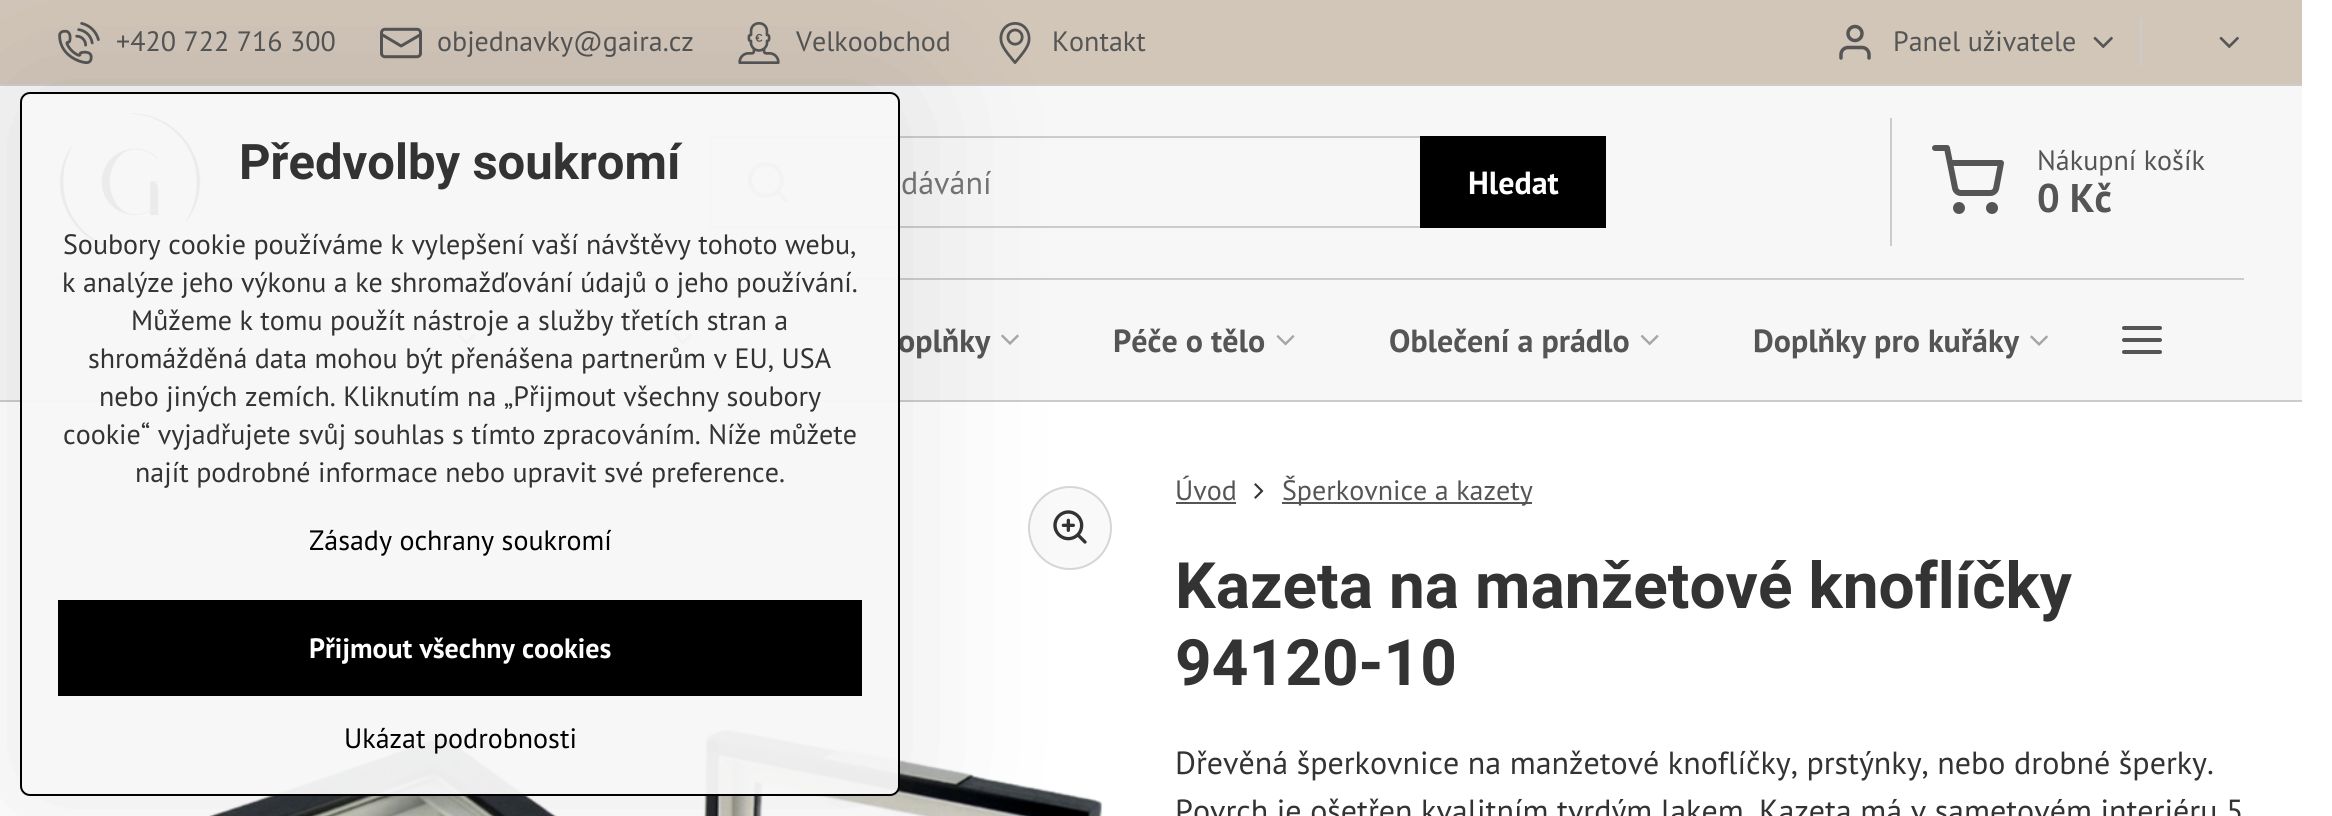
#include <cairo.h>
#include <math.h>
#include <stddef.h>

typedef struct { double x, y; const char *s; } line_t;

static void ink(cairo_t *ctx, unsigned color) {
    cairo_set_source_rgb(ctx, (color >> 16) / 255.0, (color >> 8 & 255) / 255.0, (color & 255) / 255.0);
}

static void round_path(cairo_t *ctx, double x, double y, double w, double h, double r) {
    cairo_new_sub_path(ctx);
    cairo_arc(ctx, x + w - r, y + h - r, r, 0, M_PI / 2);
    cairo_arc(ctx, x + r, y + h - r, r, M_PI / 2, M_PI);
    cairo_arc(ctx, x + r, y + r, r, M_PI, 1.5 * M_PI);
    cairo_arc(ctx, x + w - r, y + r, r, 1.5 * M_PI, 2 * M_PI);
    cairo_close_path(ctx);
}

static void blur_box(cairo_t *ctx, double x, double y, double w, double h, double r, double blur, double alpha) {
    cairo_push_group_with_content(ctx, CAIRO_CONTENT_ALPHA);
    cairo_set_operator(ctx, CAIRO_OPERATOR_SOURCE);
    for (int i = 15; i >= -15 && fmin(w, h) + blur * i / 3 > 0; i -= 2) {
        double e = blur * i / 6;
        cairo_set_source_rgba(ctx, 0, 0, 0, alpha * erfc((i - 1) / 8.5) / 2);
        round_path(ctx, x - e, y - e, w + 2 * e, h + 2 * e, fmax(0, fmin(r + e + blur * .6, fmin(w, h) / 2 + e)));
        cairo_fill(ctx);
    }
    cairo_pattern_t *soft = cairo_pop_group(ctx);
    cairo_mask(ctx, soft);
    cairo_pattern_destroy(soft);
}

static void paste(cairo_t *ctx, const char *path, double x, double y, double w, double h) {
    cairo_surface_t *image = cairo_image_surface_create_from_png(path);
    cairo_save(ctx);
    cairo_set_source_surface(ctx, image, x, y);
    cairo_rectangle(ctx, x, y, w, h);
    cairo_fill(ctx);
    cairo_restore(ctx);
    cairo_surface_destroy(image);
}

int main(void) {
    cairo_surface_t *surface = cairo_image_surface_create(CAIRO_FORMAT_RGB24, 2332, 816);
    cairo_t *ctx = cairo_create(surface);
    cairo_font_options_t *options = cairo_font_options_create();
    cairo_font_options_set_hint_metrics(options, CAIRO_HINT_METRICS_OFF);
    cairo_font_options_set_hint_style(options, CAIRO_HINT_STYLE_NONE);
    cairo_set_font_options(ctx, options);
    cairo_set_miter_limit(ctx, 4);
    ink(ctx, 0xFFFFFF);
    cairo_paint(ctx);
    ink(ctx, 0xD1C6B8);
    cairo_rectangle(ctx, 0, 0, 2302, 84);
    cairo_fill(ctx);
    ink(ctx, 0xCCCCCC);
    cairo_rectangle(ctx, 0, 84, 2302, 2);
    cairo_fill(ctx);
    paste(ctx, "media/1.png", 58, 22, 42, 42);
    cairo_select_font_face(ctx, "PT Sans", CAIRO_FONT_SLANT_NORMAL, CAIRO_FONT_WEIGHT_NORMAL);
    cairo_set_font_size(ctx, 28);
    ink(ctx, 0x555555);
    cairo_move_to(ctx, 116, 51);
    cairo_show_text(ctx, "+420 722 716 300");
    paste(ctx, "media/2.png", 380, 27, 42, 32);
    cairo_move_to(ctx, 437, 51);
    cairo_show_text(ctx, "objednavky@gaira.cz");
    paste(ctx, "media/3.png", 738, 22, 42, 42);
    cairo_move_to(ctx, 796, 51);
    cairo_show_text(ctx, "Velkoobchod");
    paste(ctx, "media/4.png", 999, 22, 32, 42);
    cairo_move_to(ctx, 1052, 51);
    cairo_show_text(ctx, "Kontakt");
    ink(ctx, 0xCCCCCC);
    cairo_rectangle(ctx, 2140, 18, 2, 48);
    cairo_fill(ctx);
    paste(ctx, "media/5.png", 1839, 24, 32, 36);
    ink(ctx, 0x555555);
    cairo_move_to(ctx, 1893, 51);
    cairo_show_text(ctx, "Panel uživatele");
    paste(ctx, "media/6.png", 2093, 36, 20, 13);
    paste(ctx, "media/6.png", 2219, 36, 20, 13);
    ink(ctx, 0xF7F7F7);
    cairo_rectangle(ctx, 0, 86, 2302, 314);
    cairo_fill(ctx);
    paste(ctx, "media/7.png", 59, 113, 142, 138);
    cairo_rectangle(ctx, 711, 137, 894, 90);
    ink(ctx, 0xCCCCCC);
    cairo_stroke(ctx);
    paste(ctx, "media/8.png", 748, 162, 40, 40);
    cairo_set_font_size(ctx, 32);
    ink(ctx, 0x757575);
    cairo_move_to(ctx, 901, 194);
    cairo_show_text(ctx, "dávání");
    ink(ctx, 0x000000);
    cairo_rectangle(ctx, 1420, 136, 186, 92);
    cairo_fill(ctx);
    cairo_select_font_face(ctx, "PT Sans", CAIRO_FONT_SLANT_NORMAL, CAIRO_FONT_WEIGHT_BOLD);
    ink(ctx, 0xFFFFFF);
    cairo_move_to(ctx, 1468, 194);
    cairo_show_text(ctx, "Hledat");
    ink(ctx, 0xCCCCCC);
    cairo_rectangle(ctx, 1890, 118, 2, 128);
    cairo_fill(ctx);
    paste(ctx, "media/9.png", 1932, 145, 72, 69);
    cairo_select_font_face(ctx, "PT Sans", CAIRO_FONT_SLANT_NORMAL, CAIRO_FONT_WEIGHT_NORMAL);
    cairo_set_font_size(ctx, 28);
    ink(ctx, 0x555555);
    cairo_move_to(ctx, 2037, 170);
    cairo_show_text(ctx, "Nákupní košík");
    cairo_select_font_face(ctx, "PT Sans", CAIRO_FONT_SLANT_NORMAL, CAIRO_FONT_WEIGHT_BOLD);
    cairo_set_font_size(ctx, 40);
    cairo_move_to(ctx, 2037, 212);
    cairo_show_text(ctx, "0 Kč");
    ink(ctx, 0xCCCCCC);
    cairo_rectangle(ctx, 0, 400, 2302, 2);
    cairo_fill(ctx);
    cairo_rectangle(ctx, 58, 278, 2186, 2);
    cairo_fill(ctx);
    paste(ctx, "media/10.png", 457, 334, 19, 11);
    paste(ctx, "media/11.png", 674, 333, 18, 11);
    cairo_set_font_size(ctx, 32);
    ink(ctx, 0x555555);
    cairo_move_to(ctx, 898, 352);
    cairo_show_text(ctx, "oplňky");
    paste(ctx, "media/12.png", 1001, 334, 18, 11);
    cairo_move_to(ctx, 1113, 352);
    cairo_show_text(ctx, "Péče o tělo");
    paste(ctx, "media/13.png", 1276, 335, 19, 11);
    cairo_move_to(ctx, 1389, 352);
    cairo_show_text(ctx, "Oblečení a prádlo");
    paste(ctx, "media/14.png", 1640, 335, 19, 11);
    cairo_move_to(ctx, 1753, 352);
    cairo_show_text(ctx, "Doplňky pro kuřáky");
    paste(ctx, "media/15.png", 2030, 335, 18, 11);
    paste(ctx, "media/16.png", 2122, 326, 40, 28);
    ink(ctx, 0xF9F9F9);
    cairo_arc(ctx, 1070, 528, 41, 0, 2 * M_PI);
    cairo_fill_preserve(ctx);
    ink(ctx, 0xD6D6D6);
    cairo_stroke(ctx);
    paste(ctx, "media/17.png", 1053, 510, 34, 34);
    paste(ctx, "media/18.png", 209, 729, 894, 87);
    cairo_select_font_face(ctx, "PT Sans", CAIRO_FONT_SLANT_NORMAL, CAIRO_FONT_WEIGHT_NORMAL);
    cairo_set_font_size(ctx, 28);
    ink(ctx, 0x555555);
    cairo_move_to(ctx, 1175, 500);
    cairo_show_text(ctx, "Úvod");
    cairo_rectangle(ctx, 1176, 502, 60, 2);
    cairo_fill(ctx);
    paste(ctx, "media/19.png", 1254, 483, 10, 16);
    cairo_rectangle(ctx, 1282, 502, 250, 2);
    cairo_fill(ctx);
    cairo_move_to(ctx, 1282, 500);
    cairo_show_text(ctx, "Šperkovnice a kazety");
    cairo_select_font_face(ctx, "Roboto", CAIRO_FONT_SLANT_NORMAL, CAIRO_FONT_WEIGHT_BOLD);
    cairo_set_font_size(ctx, 64);
    ink(ctx, 0x333333);
    cairo_move_to(ctx, 1175, 608);
    cairo_show_text(ctx, "Kazeta na manžetové knoflíčky");
    cairo_move_to(ctx, 1175, 685);
    cairo_show_text(ctx, "94120-10");
    cairo_select_font_face(ctx, "PT Sans", CAIRO_FONT_SLANT_NORMAL, CAIRO_FONT_WEIGHT_NORMAL);
    cairo_set_font_size(ctx, 32);
    cairo_move_to(ctx, 1175, 774);
    cairo_show_text(ctx, "Dřevěná šperkovnice na manžetové knoflíčky, prstýnky, nebo drobné šperky.");
    cairo_move_to(ctx, 1175, 822);
    cairo_show_text(ctx, "Povrch je ošetřen kvalitním tvrdým lakem. Kazeta má v sametovém interiéru 5");
    cairo_save(ctx);
    cairo_set_fill_rule(ctx, CAIRO_FILL_RULE_EVEN_ODD);
    cairo_new_path(ctx);
    cairo_move_to(ctx, 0, 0);
    cairo_line_to(ctx, 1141, 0);
    cairo_line_to(ctx, 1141, 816);
    cairo_line_to(ctx, 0, 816);
    cairo_close_path(ctx);
    cairo_move_to(ctx, 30, 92);
    cairo_line_to(ctx, 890, 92);
    cairo_curve_to(ctx, 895.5, 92, 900, 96.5, 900, 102);
    cairo_line_to(ctx, 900, 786);
    cairo_curve_to(ctx, 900, 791.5, 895.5, 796, 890, 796);
    cairo_line_to(ctx, 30, 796);
    cairo_curve_to(ctx, 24.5, 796, 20, 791.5, 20, 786);
    cairo_line_to(ctx, 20, 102);
    cairo_curve_to(ctx, 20, 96.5, 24.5, 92, 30, 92);
    cairo_close_path(ctx);
    cairo_clip(ctx);
    ink(ctx, 0x000000);
    blur_box(ctx, 20, 92, 880, 704, 10, 80, 0.1);
    cairo_restore(ctx);
    cairo_set_source_rgba(ctx, 0.969, 0.969, 0.969, 0.95);
    round_path(ctx, 21, 93, 878, 702, 9);
    cairo_fill_preserve(ctx);
    ink(ctx, 0x000000);
    cairo_stroke(ctx);
    cairo_select_font_face(ctx, "Roboto", CAIRO_FONT_SLANT_NORMAL, CAIRO_FONT_WEIGHT_BOLD);
    cairo_set_font_size(ctx, 49);
    ink(ctx, 0x333333);
    cairo_move_to(ctx, 239, 179);
    cairo_show_text(ctx, "Předvolby soukromí");
    cairo_select_font_face(ctx, "PT Sans", CAIRO_FONT_SLANT_NORMAL, CAIRO_FONT_WEIGHT_NORMAL);
    cairo_set_font_size(ctx, 28);
    {
        static const line_t items[] = {
            {63, 254, "Soubory cookie používáme k vylepšení vaší návštěvy tohoto webu,"},
            {62, 292, "k analýze jeho výkonu a ke shromažďování údajů o jeho používání."},
            {131, 330, "Můžeme k tomu použít nástroje a služby třetích stran a"},
            {88, 368, "shromážděná data mohou být přenášena partnerům v EU, USA"},
            {99, 406, "nebo jiných zemích. Kliknutím na „Přijmout všechny soubory"},
            {63, 444, "cookie“ vyjadřujete svůj souhlas s tímto zpracováním. Níže můžete"},
            {135, 482, "najít podrobné informace nebo upravit své preference."},
        };
        for (size_t i = 0; i < sizeof items / sizeof *items; i++) {
            cairo_move_to(ctx, items[i].x, items[i].y);
            cairo_show_text(ctx, items[i].s);
        }
    }
    ink(ctx, 0x000000);
    cairo_move_to(ctx, 309, 550);
    cairo_show_text(ctx, "Zásady ochrany soukromí");
    cairo_rectangle(ctx, 58, 600, 804, 96);
    cairo_fill(ctx);
    cairo_select_font_face(ctx, "PT Sans", CAIRO_FONT_SLANT_NORMAL, CAIRO_FONT_WEIGHT_BOLD);
    ink(ctx, 0xFFFFFF);
    cairo_move_to(ctx, 309, 658);
    cairo_show_text(ctx, "Přijmout všechny cookies");
    cairo_select_font_face(ctx, "PT Sans", CAIRO_FONT_SLANT_NORMAL, CAIRO_FONT_WEIGHT_NORMAL);
    ink(ctx, 0x000000);
    cairo_move_to(ctx, 344, 748);
    cairo_show_text(ctx, "Ukázat podrobnosti");
    cairo_surface_write_to_png(surface, "image.png");
    cairo_font_options_destroy(options);
    cairo_destroy(ctx);
    cairo_surface_destroy(surface);
    return 0;
}
